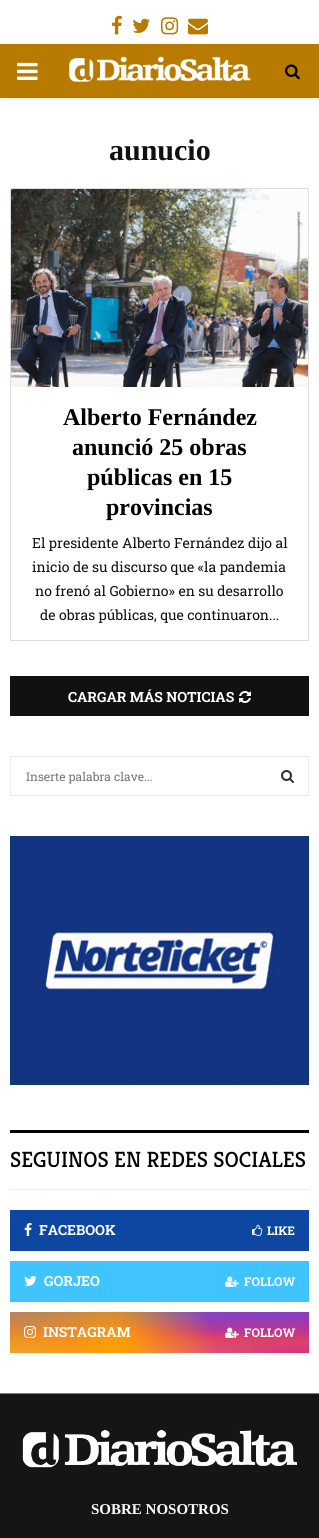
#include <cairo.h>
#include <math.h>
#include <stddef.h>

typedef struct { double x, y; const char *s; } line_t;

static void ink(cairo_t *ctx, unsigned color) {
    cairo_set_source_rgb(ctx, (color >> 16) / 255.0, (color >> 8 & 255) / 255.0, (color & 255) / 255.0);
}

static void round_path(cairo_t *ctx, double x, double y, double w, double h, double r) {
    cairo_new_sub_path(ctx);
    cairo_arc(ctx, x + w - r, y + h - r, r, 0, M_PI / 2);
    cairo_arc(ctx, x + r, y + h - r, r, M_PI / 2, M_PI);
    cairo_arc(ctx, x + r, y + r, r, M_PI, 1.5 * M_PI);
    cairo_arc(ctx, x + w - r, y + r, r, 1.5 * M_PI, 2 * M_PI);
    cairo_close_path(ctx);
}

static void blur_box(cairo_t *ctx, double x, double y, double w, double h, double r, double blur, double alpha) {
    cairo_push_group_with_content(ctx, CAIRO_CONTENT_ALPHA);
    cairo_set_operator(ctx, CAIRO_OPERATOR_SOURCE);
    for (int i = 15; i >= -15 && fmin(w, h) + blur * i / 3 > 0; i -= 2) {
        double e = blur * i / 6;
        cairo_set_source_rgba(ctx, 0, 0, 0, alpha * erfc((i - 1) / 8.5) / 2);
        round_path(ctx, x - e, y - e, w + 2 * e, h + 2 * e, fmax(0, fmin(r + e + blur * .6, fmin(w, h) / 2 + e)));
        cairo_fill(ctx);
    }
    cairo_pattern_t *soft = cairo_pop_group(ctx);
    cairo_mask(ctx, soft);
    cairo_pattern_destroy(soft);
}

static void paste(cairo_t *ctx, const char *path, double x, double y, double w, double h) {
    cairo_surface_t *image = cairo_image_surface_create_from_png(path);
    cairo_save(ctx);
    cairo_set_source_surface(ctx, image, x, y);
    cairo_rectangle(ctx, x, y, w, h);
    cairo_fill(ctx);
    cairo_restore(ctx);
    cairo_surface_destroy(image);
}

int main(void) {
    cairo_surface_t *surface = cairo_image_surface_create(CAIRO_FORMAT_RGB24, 319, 1538);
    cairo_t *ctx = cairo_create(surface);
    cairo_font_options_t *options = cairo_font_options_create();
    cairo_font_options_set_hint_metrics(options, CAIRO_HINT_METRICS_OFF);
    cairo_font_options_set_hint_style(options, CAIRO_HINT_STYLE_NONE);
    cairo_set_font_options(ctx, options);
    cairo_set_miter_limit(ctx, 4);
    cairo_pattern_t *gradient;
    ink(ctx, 0xFFFFFF);
    cairo_paint(ctx);
    paste(ctx, "media/1.png", 112, 15, 10, 20);
    paste(ctx, "media/2.png", 132, 18, 18, 15);
    paste(ctx, "media/3.png", 161, 17, 18, 18);
    paste(ctx, "media/4.png", 188, 18, 20, 17);
    ink(ctx, 0xBEBEBE);
    blur_box(ctx, 0, 45, 319, 54, 0, 2.5, 0.46);
    ink(ctx, 0xB87B00);
    cairo_rectangle(ctx, 0, 44, 319, 54);
    cairo_fill(ctx);
    paste(ctx, "media/5.png", 17, 62, 21, 18);
    paste(ctx, "media/6.png", 69, 56, 182, 26);
    paste(ctx, "media/7.png", 285, 64, 15, 16);
    cairo_select_font_face(ctx, "Tinos", CAIRO_FONT_SLANT_NORMAL, CAIRO_FONT_WEIGHT_BOLD);
    cairo_set_font_size(ctx, 30);
    ink(ctx, 0x111111);
    cairo_move_to(ctx, 109, 160);
    cairo_show_text(ctx, "aunucio");
    cairo_rectangle(ctx, 10.5, 188.5, 298, 452);
    ink(ctx, 0xDEDEDE);
    cairo_set_line_width(ctx, 1);
    cairo_stroke(ctx);
    paste(ctx, "media/8.png", 11, 189, 297, 198);
    cairo_set_font_size(ctx, 24);
    ink(ctx, 0x000000);
    {
        static const line_t items[] = {
            {63, 425, "Alberto Fernández"},
            {72, 455, "anunció 25 obras"},
            {87, 485, "públicas en 15"},
            {106, 515, "provincias"},
        };
        for (size_t i = 0; i < sizeof items / sizeof *items; i++) {
            cairo_move_to(ctx, items[i].x, items[i].y);
            cairo_show_text(ctx, items[i].s);
        }
    }
    cairo_select_font_face(ctx, "Roboto Slab", CAIRO_FONT_SLANT_NORMAL, CAIRO_FONT_WEIGHT_NORMAL);
    cairo_set_font_size(ctx, 14);
    ink(ctx, 0x111111);
    {
        static const line_t items[] = {
            {32, 548, "El presidente Alberto Fernández dijo al"},
            {32, 572, "inicio de su discurso que «la pandemia"},
            {35, 596, "no frenó al Gobierno» en su desarrollo"},
            {40, 620, "de obras públicas, que continuaron..."},
        };
        for (size_t i = 0; i < sizeof items / sizeof *items; i++) {
            cairo_move_to(ctx, items[i].x, items[i].y);
            cairo_show_text(ctx, items[i].s);
        }
    }
    cairo_rectangle(ctx, 10, 676, 299, 40);
    cairo_fill(ctx);
    cairo_select_font_face(ctx, "Roboto Slab", CAIRO_FONT_SLANT_NORMAL, CAIRO_FONT_WEIGHT_BOLD);
    ink(ctx, 0xFFFFFF);
    cairo_move_to(ctx, 68, 702);
    cairo_show_text(ctx, "CARGAR MÁS NOTICIAS");
    paste(ctx, "media/9.png", 239, 691, 12, 12);
    cairo_rectangle(ctx, 10.5, 756.5, 298, 39);
    ink(ctx, 0xECECEC);
    cairo_stroke(ctx);
    cairo_select_font_face(ctx, "Roboto Slab", CAIRO_FONT_SLANT_NORMAL, CAIRO_FONT_WEIGHT_NORMAL);
    cairo_set_font_size(ctx, 12);
    ink(ctx, 0x757575);
    cairo_move_to(ctx, 26, 781);
    cairo_show_text(ctx, "Inserte palabra clave...");
    paste(ctx, "media/10.png", 281, 770, 13, 13);
    paste(ctx, "media/11.png", 10, 836, 299, 249);
    ink(ctx, 0xECECEC);
    cairo_rectangle(ctx, 10, 1189, 299, 1);
    cairo_fill(ctx);
    ink(ctx, 0x000000);
    cairo_rectangle(ctx, 10, 1130, 299, 3);
    cairo_fill(ctx);
    cairo_select_font_face(ctx, "Kreon", CAIRO_FONT_SLANT_NORMAL, CAIRO_FONT_WEIGHT_NORMAL);
    cairo_set_font_size(ctx, 22);
    cairo_move_to(ctx, 10, 1167);
    cairo_show_text(ctx, "SEGUINOS EN REDES SOCIALES");
    ink(ctx, 0x0D47A1);
    cairo_rectangle(ctx, 10, 1210, 299, 41);
    cairo_fill(ctx);
    paste(ctx, "media/12.png", 24, 1223, 8, 13);
    cairo_select_font_face(ctx, "Roboto Slab", CAIRO_FONT_SLANT_NORMAL, CAIRO_FONT_WEIGHT_BOLD);
    cairo_set_font_size(ctx, 14);
    ink(ctx, 0xFFFFFF);
    cairo_move_to(ctx, 39, 1235);
    cairo_show_text(ctx, "FACEBOOK");
    paste(ctx, "media/13.png", 252, 1224, 11, 12);
    cairo_set_font_size(ctx, 12);
    cairo_move_to(ctx, 267, 1235);
    cairo_show_text(ctx, "LIKE");
    ink(ctx, 0x40C4FF);
    cairo_rectangle(ctx, 10, 1261, 299, 41);
    cairo_fill(ctx);
    paste(ctx, "media/14.png", 24, 1276, 13, 10);
    cairo_set_font_size(ctx, 14);
    ink(ctx, 0xFFFFFF);
    cairo_move_to(ctx, 44, 1286);
    cairo_show_text(ctx, "GORJEO");
    paste(ctx, "media/15.png", 225, 1276, 14, 11);
    cairo_set_font_size(ctx, 12);
    cairo_move_to(ctx, 244, 1286);
    cairo_show_text(ctx, "FOLLOW");
    gradient = cairo_pattern_create_linear(160, 1312, 160, 1353);
    cairo_pattern_add_color_stop_rgba(gradient, 0, 0.396, 0.349, 0.792, 1);
    cairo_pattern_add_color_stop_rgba(gradient, 0.3, 0.737, 0.192, 0.561, 1);
    cairo_pattern_add_color_stop_rgba(gradient, 0.5, 0.89, 0.247, 0.373, 1);
    cairo_pattern_add_color_stop_rgba(gradient, 0.7, 0.969, 0.463, 0.22, 1);
    cairo_pattern_add_color_stop_rgba(gradient, 1, 0.996, 0.776, 0.427, 1);
    cairo_set_source(ctx, gradient);
    cairo_pattern_destroy(gradient);
    cairo_rectangle(ctx, 10, 1312, 299, 41);
    cairo_fill(ctx);
    gradient = cairo_pattern_create_radial(0, 0, 0, 0, 0, 1);
    cairo_pattern_set_matrix(gradient, &(cairo_matrix_t){1.0 / 423, 0, 0, 1.0 / 58, -1.0 * 309 / 423, -1.0 * 1353 / 58});
    cairo_pattern_add_color_stop_rgba(gradient, 0, 0.831, 0.192, 0.471, 1);
    cairo_pattern_add_color_stop_rgba(gradient, 1, 0.831, 0.192, 0.471, 0);
    cairo_set_source(ctx, gradient);
    cairo_pattern_destroy(gradient);
    cairo_rectangle(ctx, 10, 1312, 299, 41);
    cairo_fill(ctx);
    gradient = cairo_pattern_create_radial(0, 0, 0, 0, 0, 1);
    cairo_pattern_set_matrix(gradient, &(cairo_matrix_t){1.0 / 254, 0, 0, 1.0 / 70, -1.0 * 189 / 254, -1.0 * 1304 / 70});
    cairo_pattern_add_color_stop_rgba(gradient, 0, 0.561, 0.267, 0.78, 1);
    cairo_pattern_add_color_stop_rgba(gradient, 0.5, 0.561, 0.267, 0.78, 0);
    cairo_set_source(ctx, gradient);
    cairo_pattern_destroy(gradient);
    cairo_rectangle(ctx, 80, 1312, 220, 26);
    cairo_fill(ctx);
    gradient = cairo_pattern_create_radial(0, 0, 0, 0, 0, 1);
    cairo_pattern_set_matrix(gradient, &(cairo_matrix_t){1.0 / 423, 0, 0, 1.0 / 58, -1.0 * 309 / 423, -1.0 * 1312 / 58});
    cairo_pattern_add_color_stop_rgba(gradient, 0, 0.537, 0.239, 0.761, 1);
    cairo_pattern_add_color_stop_rgba(gradient, 0.5, 0.537, 0.239, 0.761, 0);
    cairo_set_source(ctx, gradient);
    cairo_pattern_destroy(gradient);
    cairo_rectangle(ctx, 123, 1312, 186, 28);
    cairo_fill(ctx);
    gradient = cairo_pattern_create_radial(0, 0, 0, 0, 0, 1);
    cairo_pattern_set_matrix(gradient, &(cairo_matrix_t){1.0 / 338, 0, 0, 1.0 / 87, -1.0 * 70 / 338, -1.0 * 1292 / 87});
    cairo_pattern_add_color_stop_rgba(gradient, 0, 0.322, 0.345, 0.812, 1);
    cairo_pattern_add_color_stop_rgba(gradient, 0.5, 0.322, 0.345, 0.812, 0);
    cairo_set_source(ctx, gradient);
    cairo_pattern_destroy(gradient);
    cairo_rectangle(ctx, 10, 1312, 200, 23);
    cairo_fill(ctx);
    gradient = cairo_pattern_create_radial(0, 0, 0, 0, 0, 1);
    cairo_pattern_set_matrix(gradient, &(cairo_matrix_t){1.0 / 423, 0, 0, 1.0 / 72, -1.0 * 10 / 423, -1.0 * 1302 / 72});
    cairo_pattern_add_color_stop_rgba(gradient, 0, 0.322, 0.345, 0.812, 1);
    cairo_pattern_add_color_stop_rgba(gradient, 0.5, 0.322, 0.345, 0.812, 0);
    cairo_set_source(ctx, gradient);
    cairo_pattern_destroy(gradient);
    cairo_rectangle(ctx, 10, 1312, 191, 25);
    cairo_fill(ctx);
    gradient = cairo_pattern_create_radial(10, 1369, 0, 10, 1369, 304);
    cairo_pattern_add_color_stop_rgba(gradient, 0, 0.937, 0.631, 0.11, 1);
    cairo_pattern_add_color_stop_rgba(gradient, 0.5, 0.937, 0.631, 0.11, 0);
    cairo_set_source(ctx, gradient);
    cairo_pattern_destroy(gradient);
    cairo_rectangle(ctx, 10, 1312, 146, 41);
    cairo_fill(ctx);
    gradient = cairo_pattern_create_radial(115, 1349, 0, 115, 1349, 198);
    cairo_pattern_add_color_stop_rgba(gradient, 0, 1, 0.631, 0, 1);
    cairo_pattern_add_color_stop_rgba(gradient, 0.5, 1, 0.631, 0, 0);
    cairo_set_source(ctx, gradient);
    cairo_pattern_destroy(gradient);
    cairo_rectangle(ctx, 22, 1312, 190, 41);
    cairo_fill(ctx);
    paste(ctx, "media/16.png", 24, 1326, 12, 12);
    cairo_set_font_size(ctx, 14);
    ink(ctx, 0xFFFFFF);
    cairo_move_to(ctx, 43, 1337);
    cairo_show_text(ctx, "INSTAGRAM");
    paste(ctx, "media/17.png", 225, 1327, 14, 11);
    cairo_set_font_size(ctx, 12);
    cairo_move_to(ctx, 244, 1337);
    cairo_show_text(ctx, "FOLLOW");
    ink(ctx, 0x151515);
    cairo_rectangle(ctx, 0, 1394, 319, 144);
    cairo_fill(ctx);
    ink(ctx, 0xB87B00);
    cairo_rectangle(ctx, 0, 1393, 319, 1);
    cairo_fill(ctx);
    paste(ctx, "media/18.png", 22, 1430, 275, 38);
    cairo_select_font_face(ctx, "Tinos", CAIRO_FONT_SLANT_NORMAL, CAIRO_FONT_WEIGHT_BOLD);
    cairo_set_font_size(ctx, 15);
    ink(ctx, 0xFFFFFF);
    cairo_move_to(ctx, 91, 1514);
    cairo_show_text(ctx, "SOBRE NOSOTROS");
    cairo_surface_write_to_png(surface, "image.png");
    cairo_font_options_destroy(options);
    cairo_destroy(ctx);
    cairo_surface_destroy(surface);
    return 0;
}
